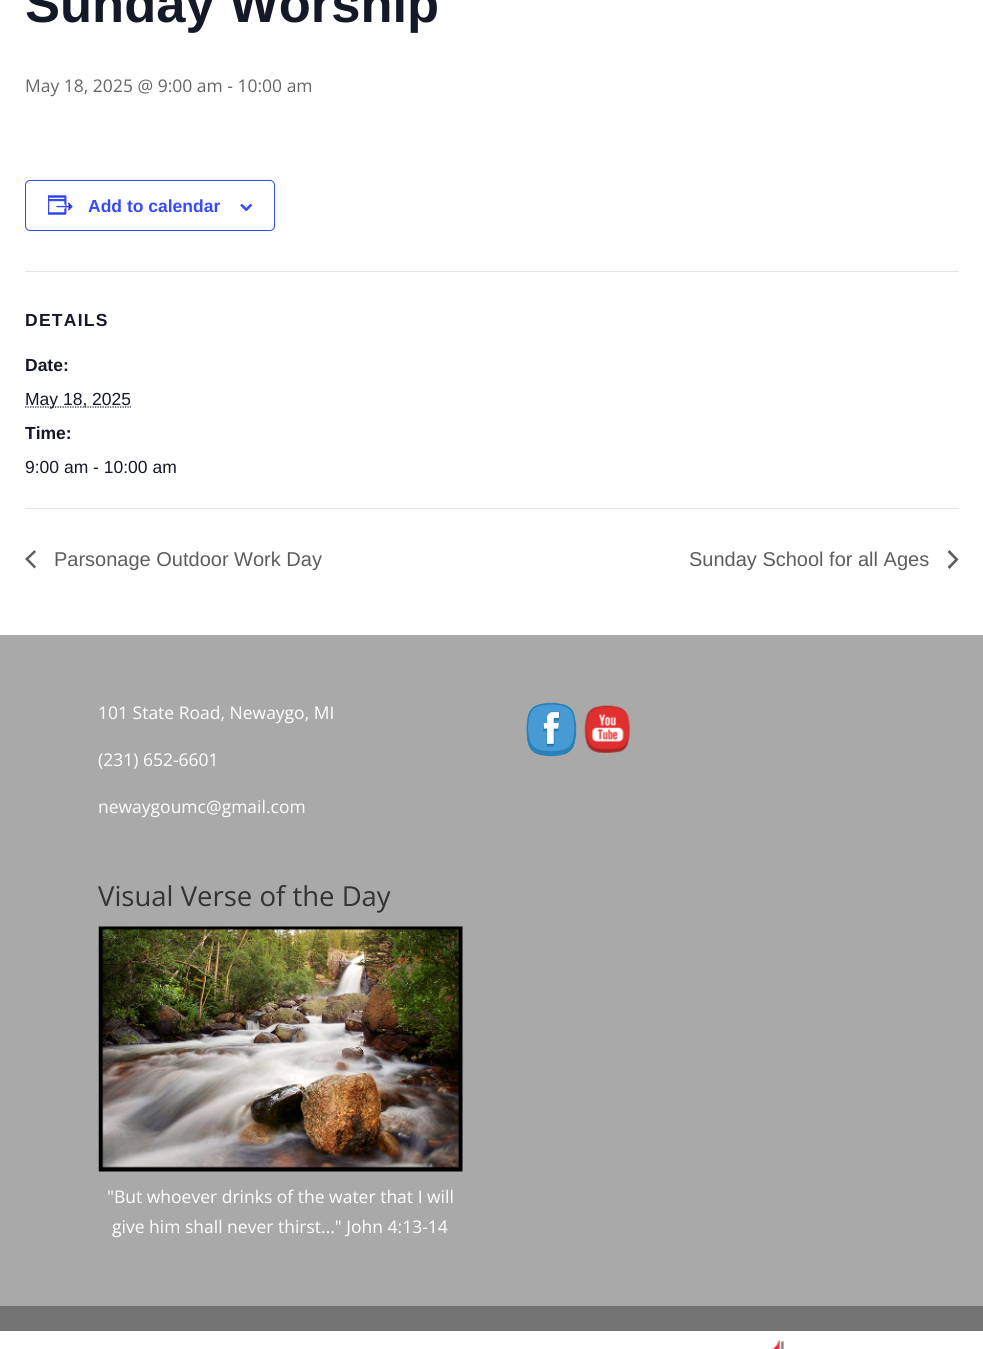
#include <cairo.h>
#include <math.h>
#include <stddef.h>

typedef struct { double x, y; const char *s; } line_t;

static void ink(cairo_t *ctx, unsigned color) {
    cairo_set_source_rgb(ctx, (color >> 16) / 255.0, (color >> 8 & 255) / 255.0, (color & 255) / 255.0);
}

static void write_spaced(cairo_t *ctx, double x, double y, const char *s, double letter, double word) {
    cairo_move_to(ctx, x, y);
    while (*s) {
        char ch[5] = {0};
        int n = 0;
        do ch[n++] = *s++; while ((*s & 0xC0) == 0x80);
        cairo_show_text(ctx, ch);
        cairo_rel_move_to(ctx, letter + word * (*ch == ' '), 0);
    }
}

static void round_path(cairo_t *ctx, double x, double y, double w, double h, double r) {
    cairo_new_sub_path(ctx);
    cairo_arc(ctx, x + w - r, y + h - r, r, 0, M_PI / 2);
    cairo_arc(ctx, x + r, y + h - r, r, M_PI / 2, M_PI);
    cairo_arc(ctx, x + r, y + r, r, M_PI, 1.5 * M_PI);
    cairo_arc(ctx, x + w - r, y + r, r, 1.5 * M_PI, 2 * M_PI);
    cairo_close_path(ctx);
}

static void paste(cairo_t *ctx, const char *path, double x, double y, double w, double h) {
    cairo_surface_t *image = cairo_image_surface_create_from_png(path);
    cairo_save(ctx);
    cairo_set_source_surface(ctx, image, x, y);
    cairo_rectangle(ctx, x, y, w, h);
    cairo_fill(ctx);
    cairo_restore(ctx);
    cairo_surface_destroy(image);
}

int main(void) {
    cairo_surface_t *surface = cairo_image_surface_create(CAIRO_FORMAT_RGB24, 983, 1349);
    cairo_t *ctx = cairo_create(surface);
    cairo_font_options_t *options = cairo_font_options_create();
    cairo_font_options_set_hint_metrics(options, CAIRO_HINT_METRICS_OFF);
    cairo_font_options_set_hint_style(options, CAIRO_HINT_STYLE_NONE);
    cairo_set_font_options(ctx, options);
    cairo_set_miter_limit(ctx, 4);
    ink(ctx, 0xFFFFFF);
    cairo_paint(ctx);
    cairo_select_font_face(ctx, "Liberation Sans", CAIRO_FONT_SLANT_NORMAL, CAIRO_FONT_WEIGHT_BOLD);
    cairo_set_font_size(ctx, 52.5);
    ink(ctx, 0x141827);
    cairo_move_to(ctx, 25, 22);
    cairo_show_text(ctx, "Sunday Worship");
    cairo_select_font_face(ctx, "Open Sans", CAIRO_FONT_SLANT_NORMAL, CAIRO_FONT_WEIGHT_NORMAL);
    cairo_set_font_size(ctx, 17.5);
    ink(ctx, 0x666666);
    cairo_move_to(ctx, 25, 92);
    cairo_show_text(ctx, "May 18, 2025 @ 9:00 am - 10:00 am");
    round_path(ctx, 25.5, 180.5, 249, 50, 4.5);
    ink(ctx, 0x334AFF);
    cairo_set_line_width(ctx, 1);
    cairo_stroke(ctx);
    paste(ctx, "media/1.png", 48, 195, 25, 20);
    cairo_select_font_face(ctx, "Liberation Sans", CAIRO_FONT_SLANT_NORMAL, CAIRO_FONT_WEIGHT_BOLD);
    cairo_move_to(ctx, 88, 212);
    cairo_show_text(ctx, "Add to calendar");
    paste(ctx, "media/2.png", 240, 204, 13, 7);
    ink(ctx, 0xE4E4E4);
    cairo_rectangle(ctx, 25, 271, 934, 1);
    cairo_fill(ctx);
    ink(ctx, 0x141827);
    write_spaced(ctx, 25, 326, "DETAILS", 1.25, 0);
    cairo_move_to(ctx, 25, 371);
    cairo_show_text(ctx, "Date:");
    cairo_new_path(ctx);
    cairo_move_to(ctx, 25, 407);
    cairo_line_to(ctx, 131, 407);
    cairo_set_line_width(ctx, 1.2);
    cairo_set_dash(ctx, (double[]){1.25, 1.25}, 2, 0);
    cairo_stroke(ctx);
    cairo_select_font_face(ctx, "Liberation Sans", CAIRO_FONT_SLANT_NORMAL, CAIRO_FONT_WEIGHT_NORMAL);
    cairo_move_to(ctx, 25, 405);
    cairo_show_text(ctx, "May 18, 2025");
    cairo_select_font_face(ctx, "Liberation Sans", CAIRO_FONT_SLANT_NORMAL, CAIRO_FONT_WEIGHT_BOLD);
    cairo_move_to(ctx, 25, 439);
    cairo_show_text(ctx, "Time:");
    cairo_select_font_face(ctx, "Liberation Sans", CAIRO_FONT_SLANT_NORMAL, CAIRO_FONT_WEIGHT_NORMAL);
    cairo_move_to(ctx, 25, 473);
    cairo_show_text(ctx, "9:00 am - 10:00 am");
    ink(ctx, 0xE4E4E4);
    cairo_rectangle(ctx, 25, 508, 934, 1);
    cairo_fill(ctx);
    ink(ctx, 0x5D5D5D);
    cairo_new_path(ctx);
    cairo_move_to(ctx, 36, 566.5);
    cairo_line_to(ctx, 34.5, 568.5);
    cairo_line_to(ctx, 25, 559);
    cairo_line_to(ctx, 34.5, 550);
    cairo_line_to(ctx, 36, 552);
    cairo_line_to(ctx, 28.5, 559);
    cairo_close_path(ctx);
    cairo_fill(ctx);
    cairo_set_font_size(ctx, 20);
    cairo_move_to(ctx, 54, 566);
    cairo_show_text(ctx, "Parsonage Outdoor Work Day");
    cairo_move_to(ctx, 689, 566);
    cairo_show_text(ctx, "Sunday School for all Ages");
    cairo_save(ctx);
    cairo_rectangle(ctx, 948, 550, 11, 19);
    cairo_clip(ctx);
    cairo_new_path(ctx);
    cairo_move_to(ctx, 947.5, 552);
    cairo_line_to(ctx, 949.5, 550);
    cairo_line_to(ctx, 958.5, 559.5);
    cairo_line_to(ctx, 949.5, 569);
    cairo_line_to(ctx, 947.5, 567);
    cairo_line_to(ctx, 955, 559.5);
    cairo_close_path(ctx);
    cairo_fill(ctx);
    cairo_restore(ctx);
    ink(ctx, 0xA9A9A9);
    cairo_rectangle(ctx, 0, 635, 983, 671);
    cairo_fill(ctx);
    cairo_select_font_face(ctx, "Open Sans", CAIRO_FONT_SLANT_NORMAL, CAIRO_FONT_WEIGHT_NORMAL);
    cairo_set_font_size(ctx, 17.5);
    ink(ctx, 0xFFFFFF);
    {
        static const line_t items[] = {
            {98, 719, "101 State Road, Newaygo, MI"},
            {98, 766, "(231) 652-6601"},
            {98, 813, "newaygoumc@gmail.com"},
        };
        for (size_t i = 0; i < sizeof items / sizeof *items; i++) {
            cairo_move_to(ctx, items[i].x, items[i].y);
            cairo_show_text(ctx, items[i].s);
        }
    }
    paste(ctx, "media/3.png", 526, 702, 51, 55);
    paste(ctx, "media/4.png", 584, 705, 47, 48);
    cairo_set_font_size(ctx, 27.5);
    ink(ctx, 0x333333);
    cairo_move_to(ctx, 98, 906);
    cairo_show_text(ctx, "Visual Verse of the Day");
    paste(ctx, "media/5.png", 98, 926, 365, 246);
    cairo_set_font_size(ctx, 17.5);
    ink(ctx, 0xFFFFFF);
    cairo_move_to(ctx, 107, 1203);
    cairo_show_text(ctx, "\"But whoever drinks of the water that I will");
    cairo_move_to(ctx, 112, 1233);
    cairo_show_text(ctx, "give him shall never thirst...\" John 4:13-14");
    ink(ctx, 0x737373);
    cairo_rectangle(ctx, 0, 1306, 983, 25);
    cairo_fill(ctx);
    paste(ctx, "media/6.png", 772, 1340, 12, 9);
    cairo_surface_write_to_png(surface, "image.png");
    cairo_font_options_destroy(options);
    cairo_destroy(ctx);
    cairo_surface_destroy(surface);
    return 0;
}
